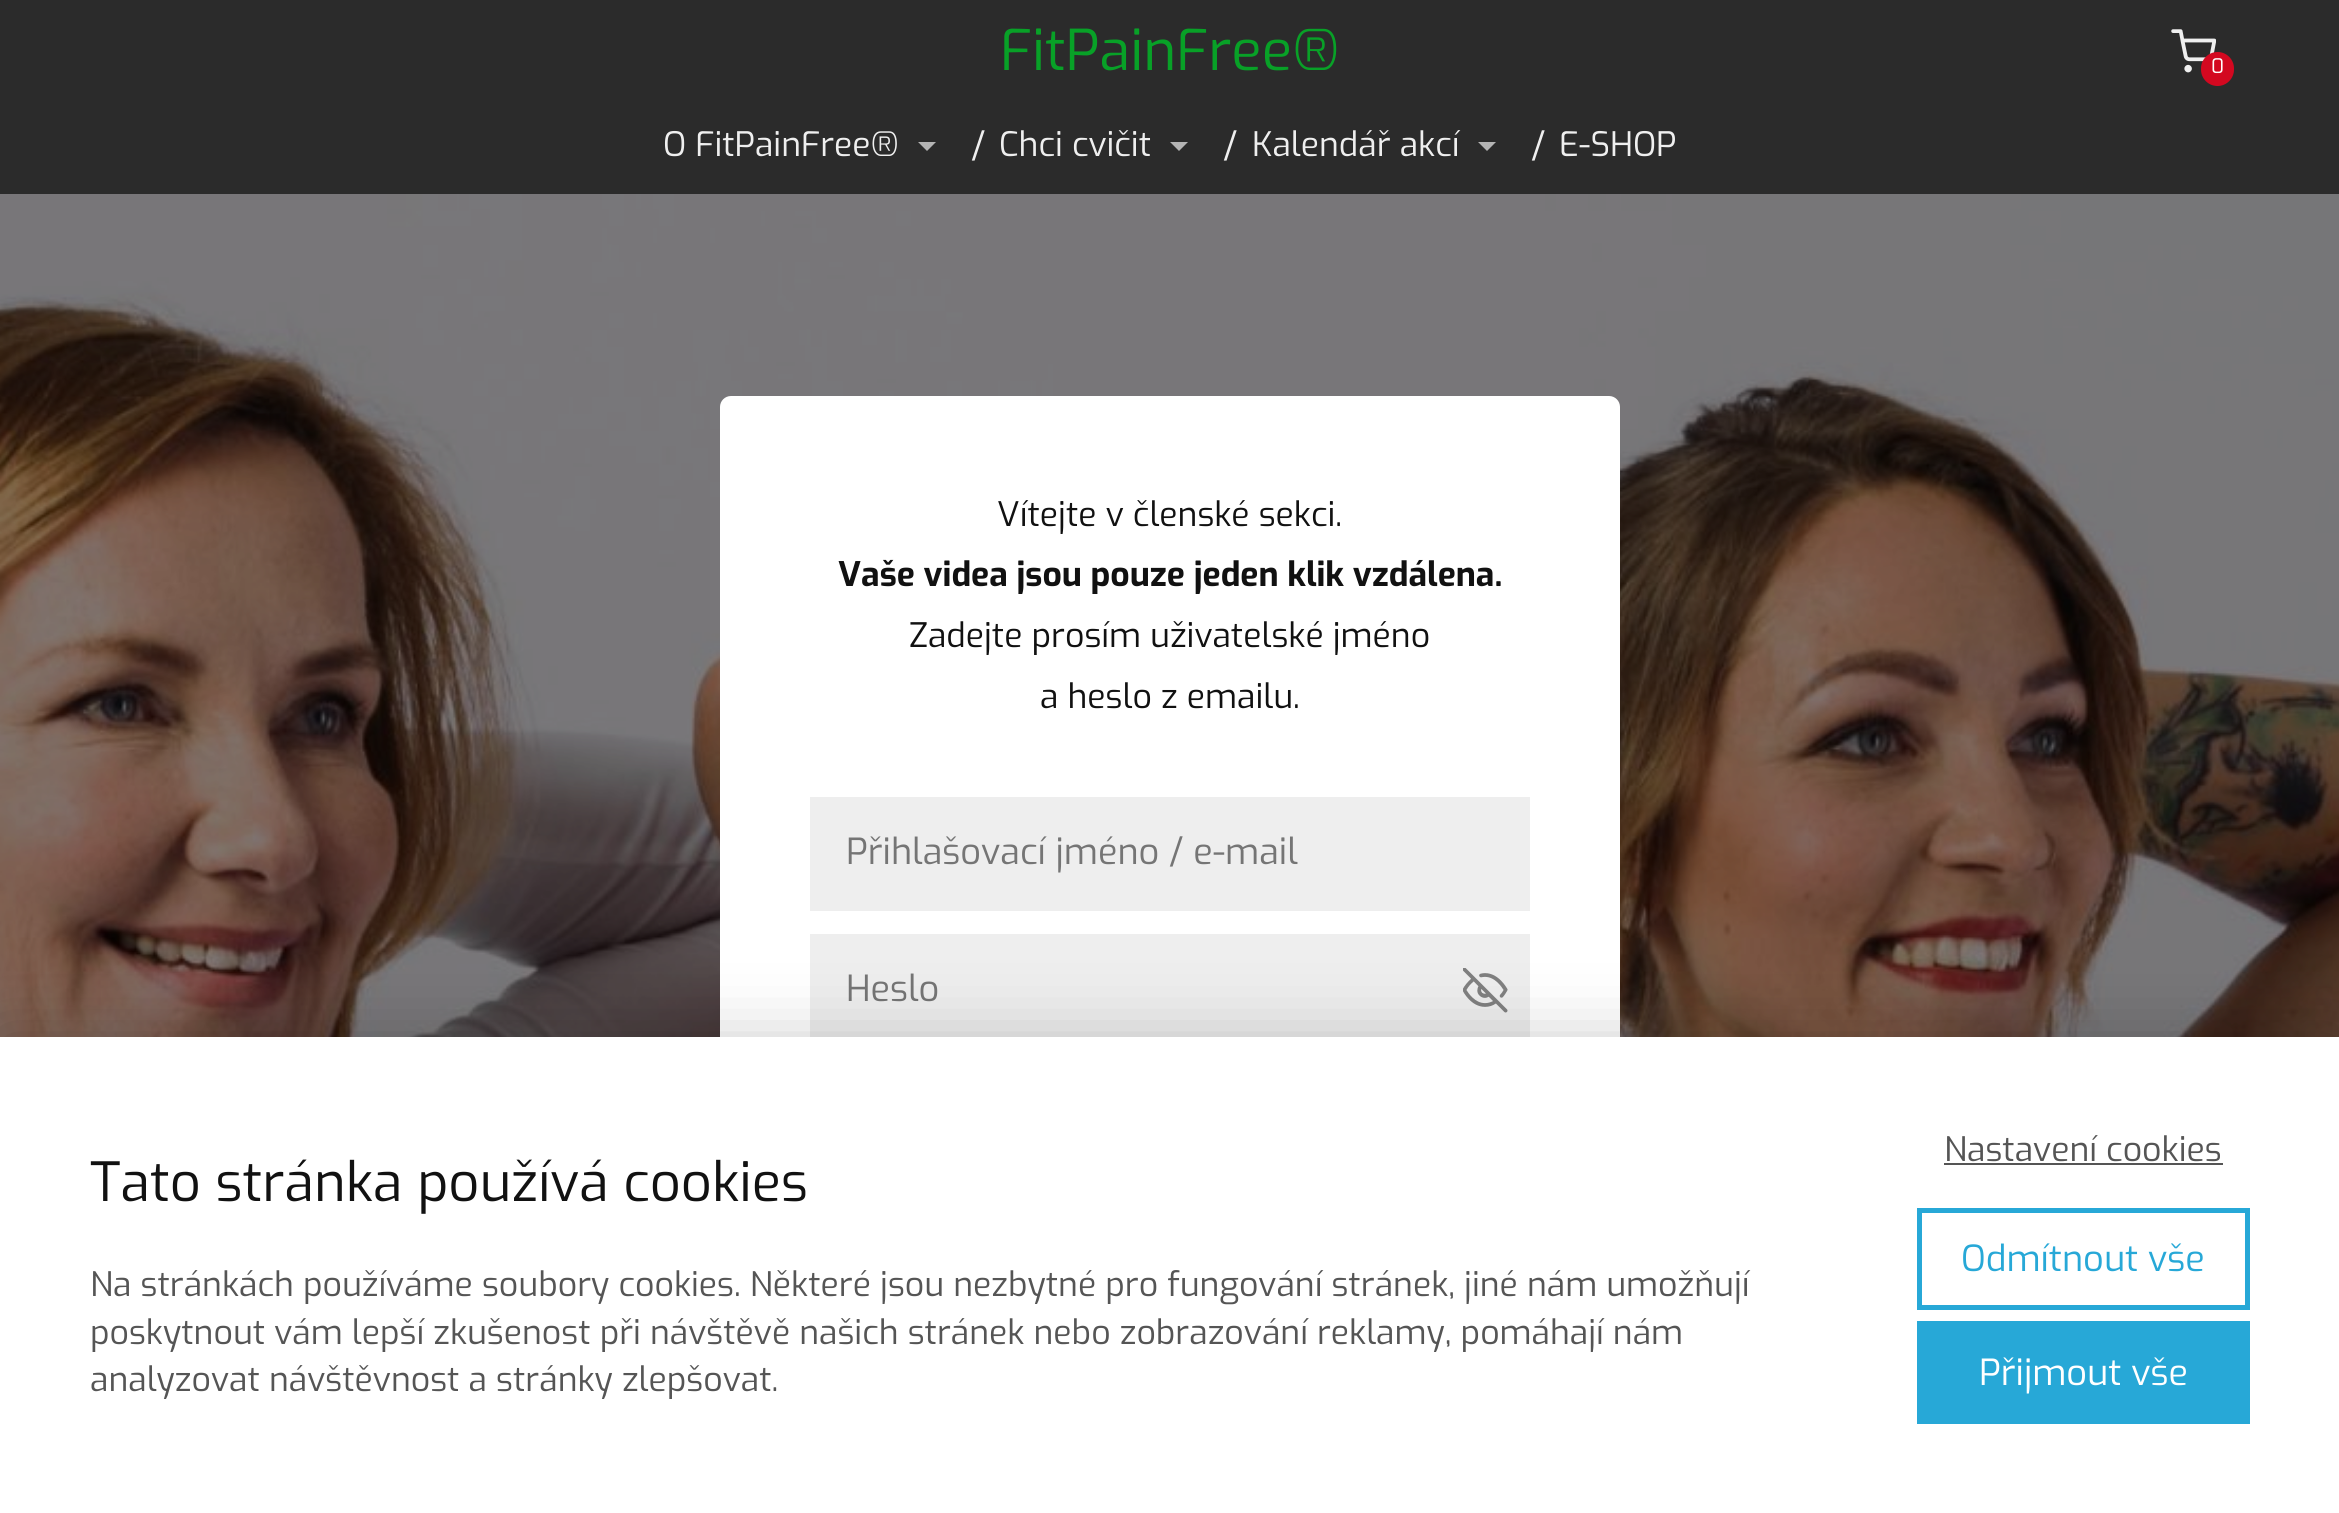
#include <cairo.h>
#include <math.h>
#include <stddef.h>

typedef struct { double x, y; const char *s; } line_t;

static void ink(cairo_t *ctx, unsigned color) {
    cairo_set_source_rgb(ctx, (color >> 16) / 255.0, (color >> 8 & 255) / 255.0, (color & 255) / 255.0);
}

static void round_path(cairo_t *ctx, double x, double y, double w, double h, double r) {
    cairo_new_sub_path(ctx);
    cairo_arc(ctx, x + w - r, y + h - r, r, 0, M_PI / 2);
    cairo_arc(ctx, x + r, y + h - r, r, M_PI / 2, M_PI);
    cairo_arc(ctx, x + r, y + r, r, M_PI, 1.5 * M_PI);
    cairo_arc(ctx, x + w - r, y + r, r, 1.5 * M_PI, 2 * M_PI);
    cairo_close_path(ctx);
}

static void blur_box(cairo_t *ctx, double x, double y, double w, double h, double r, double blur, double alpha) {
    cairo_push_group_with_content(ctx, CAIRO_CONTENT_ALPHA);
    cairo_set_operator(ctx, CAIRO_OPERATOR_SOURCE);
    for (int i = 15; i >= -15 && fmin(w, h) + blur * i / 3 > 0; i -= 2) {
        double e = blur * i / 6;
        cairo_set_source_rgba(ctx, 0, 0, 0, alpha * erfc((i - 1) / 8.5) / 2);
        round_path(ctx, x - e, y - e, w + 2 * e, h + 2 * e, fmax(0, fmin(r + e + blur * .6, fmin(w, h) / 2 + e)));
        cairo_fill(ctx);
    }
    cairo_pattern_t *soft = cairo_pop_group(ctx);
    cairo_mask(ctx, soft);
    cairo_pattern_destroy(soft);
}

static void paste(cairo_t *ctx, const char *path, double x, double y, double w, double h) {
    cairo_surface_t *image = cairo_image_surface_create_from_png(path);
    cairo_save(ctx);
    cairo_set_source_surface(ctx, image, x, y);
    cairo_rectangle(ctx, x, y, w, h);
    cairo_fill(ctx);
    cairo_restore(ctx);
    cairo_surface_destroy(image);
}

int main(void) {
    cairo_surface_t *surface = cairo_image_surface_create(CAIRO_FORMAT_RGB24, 2339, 1513);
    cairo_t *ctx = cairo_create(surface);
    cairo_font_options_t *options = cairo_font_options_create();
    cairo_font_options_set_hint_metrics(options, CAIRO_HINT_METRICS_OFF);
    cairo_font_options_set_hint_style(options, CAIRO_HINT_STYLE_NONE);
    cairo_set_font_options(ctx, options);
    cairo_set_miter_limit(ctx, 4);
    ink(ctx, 0xFFFFFF);
    cairo_paint(ctx);
    ink(ctx, 0x2B2B2B);
    cairo_rectangle(ctx, 0, 0, 2339, 194);
    cairo_fill(ctx);
    cairo_select_font_face(ctx, "Exo", CAIRO_FONT_SLANT_NORMAL, CAIRO_FONT_WEIGHT_NORMAL);
    cairo_set_font_size(ctx, 56.25);
    ink(ctx, 0x08A127);
    cairo_move_to(ctx, 1000, 70);
    cairo_show_text(ctx, "FitPainFree®");
    paste(ctx, "media/1.png", 2171, 29, 45, 44);
    ink(ctx, 0xD30820);
    round_path(ctx, 2201, 52, 33, 34, 16.5);
    cairo_fill(ctx);
    cairo_set_font_size(ctx, 20);
    ink(ctx, 0xFFFFFF);
    cairo_move_to(ctx, 2211, 73);
    cairo_show_text(ctx, "0");
    cairo_set_font_size(ctx, 33.75);
    ink(ctx, 0xEFEFEF);
    cairo_move_to(ctx, 663, 156);
    cairo_show_text(ctx, "O FitPainFree®");
    ink(ctx, 0xB4B4B4);
    cairo_new_path(ctx);
    cairo_move_to(ctx, 918, 142);
    cairo_line_to(ctx, 936, 142);
    cairo_line_to(ctx, 927, 151);
    cairo_close_path(ctx);
    cairo_fill(ctx);
    cairo_set_font_size(ctx, 36);
    ink(ctx, 0xEFEFEF);
    cairo_move_to(ctx, 971, 158);
    cairo_show_text(ctx, "/");
    cairo_set_font_size(ctx, 33.75);
    cairo_move_to(ctx, 999, 156);
    cairo_show_text(ctx, "Chci cvičit");
    ink(ctx, 0xB4B4B4);
    cairo_new_path(ctx);
    cairo_move_to(ctx, 1170, 142);
    cairo_line_to(ctx, 1188, 142);
    cairo_line_to(ctx, 1179, 151);
    cairo_close_path(ctx);
    cairo_fill(ctx);
    cairo_set_font_size(ctx, 36);
    ink(ctx, 0xEFEFEF);
    cairo_move_to(ctx, 1223, 158);
    cairo_show_text(ctx, "/");
    cairo_set_font_size(ctx, 33.75);
    cairo_move_to(ctx, 1252, 156);
    cairo_show_text(ctx, "Kalendář akcí");
    ink(ctx, 0xB4B4B4);
    cairo_new_path(ctx);
    cairo_move_to(ctx, 1478, 142);
    cairo_line_to(ctx, 1496, 142);
    cairo_line_to(ctx, 1487, 151);
    cairo_close_path(ctx);
    cairo_fill(ctx);
    cairo_set_font_size(ctx, 36);
    ink(ctx, 0xEFEFEF);
    cairo_move_to(ctx, 1531, 158);
    cairo_show_text(ctx, "/");
    cairo_set_font_size(ctx, 33.75);
    cairo_move_to(ctx, 1559, 156);
    cairo_show_text(ctx, "E-SHOP");
    paste(ctx, "media/2.png", 0, 194, 2339, 843);
    ink(ctx, 0xFFFFFF);
    round_path(ctx, 720, 396, 900, 1069, 11);
    cairo_fill(ctx);
    ink(ctx, 0x111111);
    cairo_move_to(ctx, 997, 526);
    cairo_show_text(ctx, "Vítejte v členské sekci.");
    cairo_select_font_face(ctx, "Exo", CAIRO_FONT_SLANT_NORMAL, CAIRO_FONT_WEIGHT_BOLD);
    cairo_move_to(ctx, 838, 586);
    cairo_show_text(ctx, "Vaše videa jsou pouze jeden klik vzdálena.");
    cairo_select_font_face(ctx, "Exo", CAIRO_FONT_SLANT_NORMAL, CAIRO_FONT_WEIGHT_NORMAL);
    cairo_move_to(ctx, 909, 647);
    cairo_show_text(ctx, "Zadejte prosím uživatelské jméno");
    cairo_move_to(ctx, 1040, 708);
    cairo_show_text(ctx, "a heslo z emailu.");
    ink(ctx, 0xEEEEEE);
    cairo_rectangle(ctx, 810, 797, 720, 114);
    cairo_fill(ctx);
    cairo_set_font_size(ctx, 36);
    ink(ctx, 0x757575);
    cairo_move_to(ctx, 846, 864);
    cairo_show_text(ctx, "Přihlašovací jméno / e-mail");
    ink(ctx, 0xEEEEEE);
    cairo_rectangle(ctx, 810, 934, 720, 103);
    cairo_fill(ctx);
    ink(ctx, 0x757575);
    cairo_move_to(ctx, 846, 1001);
    cairo_show_text(ctx, "Heslo");
    paste(ctx, "media/3.png", 1463, 968, 45, 45);
    ink(ctx, 0x000000);
    blur_box(ctx, 0, 1037, 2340, 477, 0, 34, 0.2);
    ink(ctx, 0xFFFFFF);
    cairo_rectangle(ctx, 0, 1037, 2339, 476);
    cairo_fill(ctx);
    cairo_set_font_size(ctx, 54);
    ink(ctx, 0x111111);
    cairo_move_to(ctx, 90, 1201);
    cairo_show_text(ctx, "Tato stránka používá cookies");
    cairo_set_font_size(ctx, 33.75);
    ink(ctx, 0x555555);
    {
        static const line_t items[] = {
            {90, 1296, "Na stránkách používáme soubory cookies. Některé jsou nezbytné pro fungování stránek, jiné nám umožňují"},
            {90, 1344, "poskytnout vám lepší zkušenost při návštěvě našich stránek nebo zobrazování reklamy, pomáhají nám"},
            {90, 1391, "analyzovat návštěvnost a stránky zlepšovat."},
            {1944, 1161, "Nastavení cookies"},
        };
        for (size_t i = 0; i < sizeof items / sizeof *items; i++) {
            cairo_move_to(ctx, items[i].x, items[i].y);
            cairo_show_text(ctx, items[i].s);
        }
    }
    cairo_rectangle(ctx, 1944, 1163, 279, 2);
    cairo_fill(ctx);
    cairo_rectangle(ctx, 1919.5, 1210.5, 328, 97);
    ink(ctx, 0x27A8D7);
    cairo_set_line_width(ctx, 5);
    cairo_stroke(ctx);
    cairo_set_font_size(ctx, 36);
    cairo_move_to(ctx, 1961, 1271);
    cairo_show_text(ctx, "Odmítnout vše");
    cairo_rectangle(ctx, 1917, 1321, 333, 103);
    cairo_fill(ctx);
    ink(ctx, 0xFFFFFF);
    cairo_move_to(ctx, 1979, 1385);
    cairo_show_text(ctx, "Přijmout vše");
    cairo_surface_write_to_png(surface, "image.png");
    cairo_font_options_destroy(options);
    cairo_destroy(ctx);
    cairo_surface_destroy(surface);
    return 0;
}
